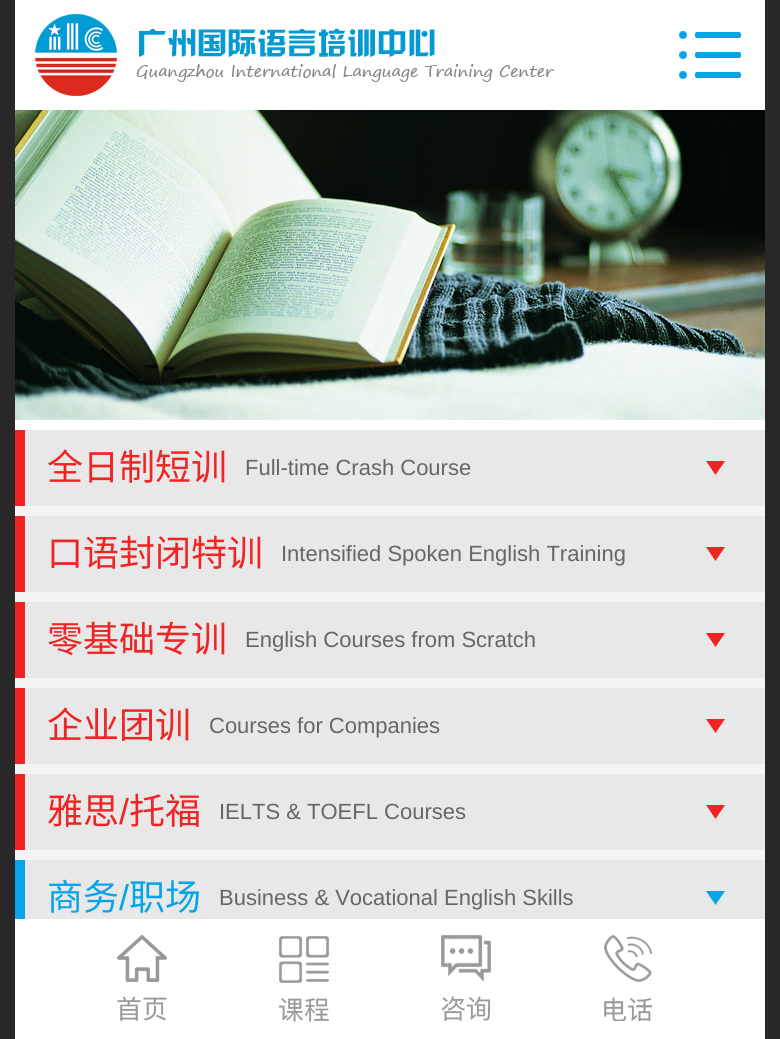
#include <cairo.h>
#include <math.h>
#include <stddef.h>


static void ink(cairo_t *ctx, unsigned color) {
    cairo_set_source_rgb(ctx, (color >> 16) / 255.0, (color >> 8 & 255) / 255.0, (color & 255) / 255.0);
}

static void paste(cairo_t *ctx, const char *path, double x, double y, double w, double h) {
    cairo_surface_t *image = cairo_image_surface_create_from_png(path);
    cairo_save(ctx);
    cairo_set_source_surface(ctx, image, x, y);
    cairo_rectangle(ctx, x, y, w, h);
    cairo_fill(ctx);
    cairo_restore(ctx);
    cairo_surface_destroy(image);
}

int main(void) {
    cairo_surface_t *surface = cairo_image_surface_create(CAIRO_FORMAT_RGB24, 780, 1039);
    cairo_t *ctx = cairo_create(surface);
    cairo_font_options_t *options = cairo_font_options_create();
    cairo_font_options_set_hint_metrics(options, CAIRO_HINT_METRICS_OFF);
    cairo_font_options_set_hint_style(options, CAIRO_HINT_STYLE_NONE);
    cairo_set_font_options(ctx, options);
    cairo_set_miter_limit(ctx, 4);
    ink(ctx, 0x282828);
    cairo_paint(ctx);
    ink(ctx, 0xFFFFFF);
    cairo_rectangle(ctx, 15, 0, 750, 110);
    cairo_fill(ctx);
    paste(ctx, "media/1.png", 35, 14, 519, 82);
    paste(ctx, "media/2.png", 679, 31, 62, 48);
    cairo_rectangle(ctx, 15, 420, 750, 10);
    cairo_fill(ctx);
    paste(ctx, "media/3.png", 15, 110, 750, 310);
    ink(ctx, 0xF4F4F4);
    cairo_rectangle(ctx, 15, 506, 750, 354);
    cairo_fill(ctx);
    paste(ctx, "media/4.png", 15, 430, 750, 76);
    cairo_select_font_face(ctx, "Noto Sans CJK SC", CAIRO_FONT_SLANT_NORMAL, CAIRO_FONT_WEIGHT_NORMAL);
    cairo_set_font_size(ctx, 36);
    ink(ctx, 0xF02424);
    cairo_move_to(ctx, 47, 480);
    cairo_show_text(ctx, "全日制短训");
    cairo_select_font_face(ctx, "Liberation Sans", CAIRO_FONT_SLANT_NORMAL, CAIRO_FONT_WEIGHT_NORMAL);
    cairo_set_font_size(ctx, 22);
    ink(ctx, 0x666666);
    cairo_move_to(ctx, 245, 475);
    cairo_show_text(ctx, "Full-time Crash Course");
    paste(ctx, "media/4.png", 15, 516, 750, 76);
    cairo_select_font_face(ctx, "Noto Sans CJK SC", CAIRO_FONT_SLANT_NORMAL, CAIRO_FONT_WEIGHT_NORMAL);
    cairo_set_font_size(ctx, 36);
    ink(ctx, 0xF02424);
    cairo_move_to(ctx, 47, 566);
    cairo_show_text(ctx, "口语封闭特训");
    cairo_select_font_face(ctx, "Liberation Sans", CAIRO_FONT_SLANT_NORMAL, CAIRO_FONT_WEIGHT_NORMAL);
    cairo_set_font_size(ctx, 22);
    ink(ctx, 0x666666);
    cairo_move_to(ctx, 281, 561);
    cairo_show_text(ctx, "Intensified Spoken English Training");
    paste(ctx, "media/4.png", 15, 602, 750, 76);
    cairo_select_font_face(ctx, "Noto Sans CJK SC", CAIRO_FONT_SLANT_NORMAL, CAIRO_FONT_WEIGHT_NORMAL);
    cairo_set_font_size(ctx, 36);
    ink(ctx, 0xF02424);
    cairo_move_to(ctx, 47, 652);
    cairo_show_text(ctx, "零基础专训");
    cairo_select_font_face(ctx, "Liberation Sans", CAIRO_FONT_SLANT_NORMAL, CAIRO_FONT_WEIGHT_NORMAL);
    cairo_set_font_size(ctx, 22);
    ink(ctx, 0x666666);
    cairo_move_to(ctx, 245, 647);
    cairo_show_text(ctx, "English Courses from Scratch");
    paste(ctx, "media/4.png", 15, 688, 750, 76);
    cairo_select_font_face(ctx, "Noto Sans CJK SC", CAIRO_FONT_SLANT_NORMAL, CAIRO_FONT_WEIGHT_NORMAL);
    cairo_set_font_size(ctx, 36);
    ink(ctx, 0xF02424);
    cairo_move_to(ctx, 47, 738);
    cairo_show_text(ctx, "企业团训");
    cairo_select_font_face(ctx, "Liberation Sans", CAIRO_FONT_SLANT_NORMAL, CAIRO_FONT_WEIGHT_NORMAL);
    cairo_set_font_size(ctx, 22);
    ink(ctx, 0x666666);
    cairo_move_to(ctx, 209, 733);
    cairo_show_text(ctx, "Courses for Companies");
    paste(ctx, "media/4.png", 15, 774, 750, 76);
    cairo_select_font_face(ctx, "Noto Sans CJK SC", CAIRO_FONT_SLANT_NORMAL, CAIRO_FONT_WEIGHT_NORMAL);
    cairo_set_font_size(ctx, 36);
    ink(ctx, 0xF02424);
    cairo_move_to(ctx, 47, 824);
    cairo_show_text(ctx, "雅思");
    cairo_select_font_face(ctx, "Liberation Sans", CAIRO_FONT_SLANT_NORMAL, CAIRO_FONT_WEIGHT_NORMAL);
    cairo_move_to(ctx, 119, 824);
    cairo_show_text(ctx, "/");
    cairo_select_font_face(ctx, "Noto Sans CJK SC", CAIRO_FONT_SLANT_NORMAL, CAIRO_FONT_WEIGHT_NORMAL);
    cairo_move_to(ctx, 129, 824);
    cairo_show_text(ctx, "托福");
    cairo_select_font_face(ctx, "Liberation Sans", CAIRO_FONT_SLANT_NORMAL, CAIRO_FONT_WEIGHT_NORMAL);
    cairo_set_font_size(ctx, 22);
    ink(ctx, 0x666666);
    cairo_move_to(ctx, 219, 819);
    cairo_show_text(ctx, "IELTS & TOEFL Courses");
    paste(ctx, "media/5.png", 15, 860, 750, 59);
    cairo_select_font_face(ctx, "Noto Sans CJK SC", CAIRO_FONT_SLANT_NORMAL, CAIRO_FONT_WEIGHT_NORMAL);
    cairo_set_font_size(ctx, 36);
    ink(ctx, 0x08A4E8);
    cairo_move_to(ctx, 47, 910);
    cairo_show_text(ctx, "商务");
    cairo_select_font_face(ctx, "Liberation Sans", CAIRO_FONT_SLANT_NORMAL, CAIRO_FONT_WEIGHT_NORMAL);
    cairo_move_to(ctx, 119, 910);
    cairo_show_text(ctx, "/");
    cairo_select_font_face(ctx, "Noto Sans CJK SC", CAIRO_FONT_SLANT_NORMAL, CAIRO_FONT_WEIGHT_NORMAL);
    cairo_move_to(ctx, 129, 910);
    cairo_show_text(ctx, "职场");
    cairo_select_font_face(ctx, "Liberation Sans", CAIRO_FONT_SLANT_NORMAL, CAIRO_FONT_WEIGHT_NORMAL);
    cairo_set_font_size(ctx, 22);
    ink(ctx, 0x666666);
    cairo_move_to(ctx, 219, 905);
    cairo_show_text(ctx, "Business & Vocational English Skills");
    ink(ctx, 0xFFFFFF);
    cairo_rectangle(ctx, 15, 919, 750, 120);
    cairo_fill(ctx);
    paste(ctx, "media/6.png", 117, 935, 50, 86);
    paste(ctx, "media/7.png", 279, 936, 50, 86);
    paste(ctx, "media/8.png", 441, 935, 50, 86);
    paste(ctx, "media/9.png", 604, 935, 49, 86);
    cairo_surface_write_to_png(surface, "image.png");
    cairo_font_options_destroy(options);
    cairo_destroy(ctx);
    cairo_surface_destroy(surface);
    return 0;
}
